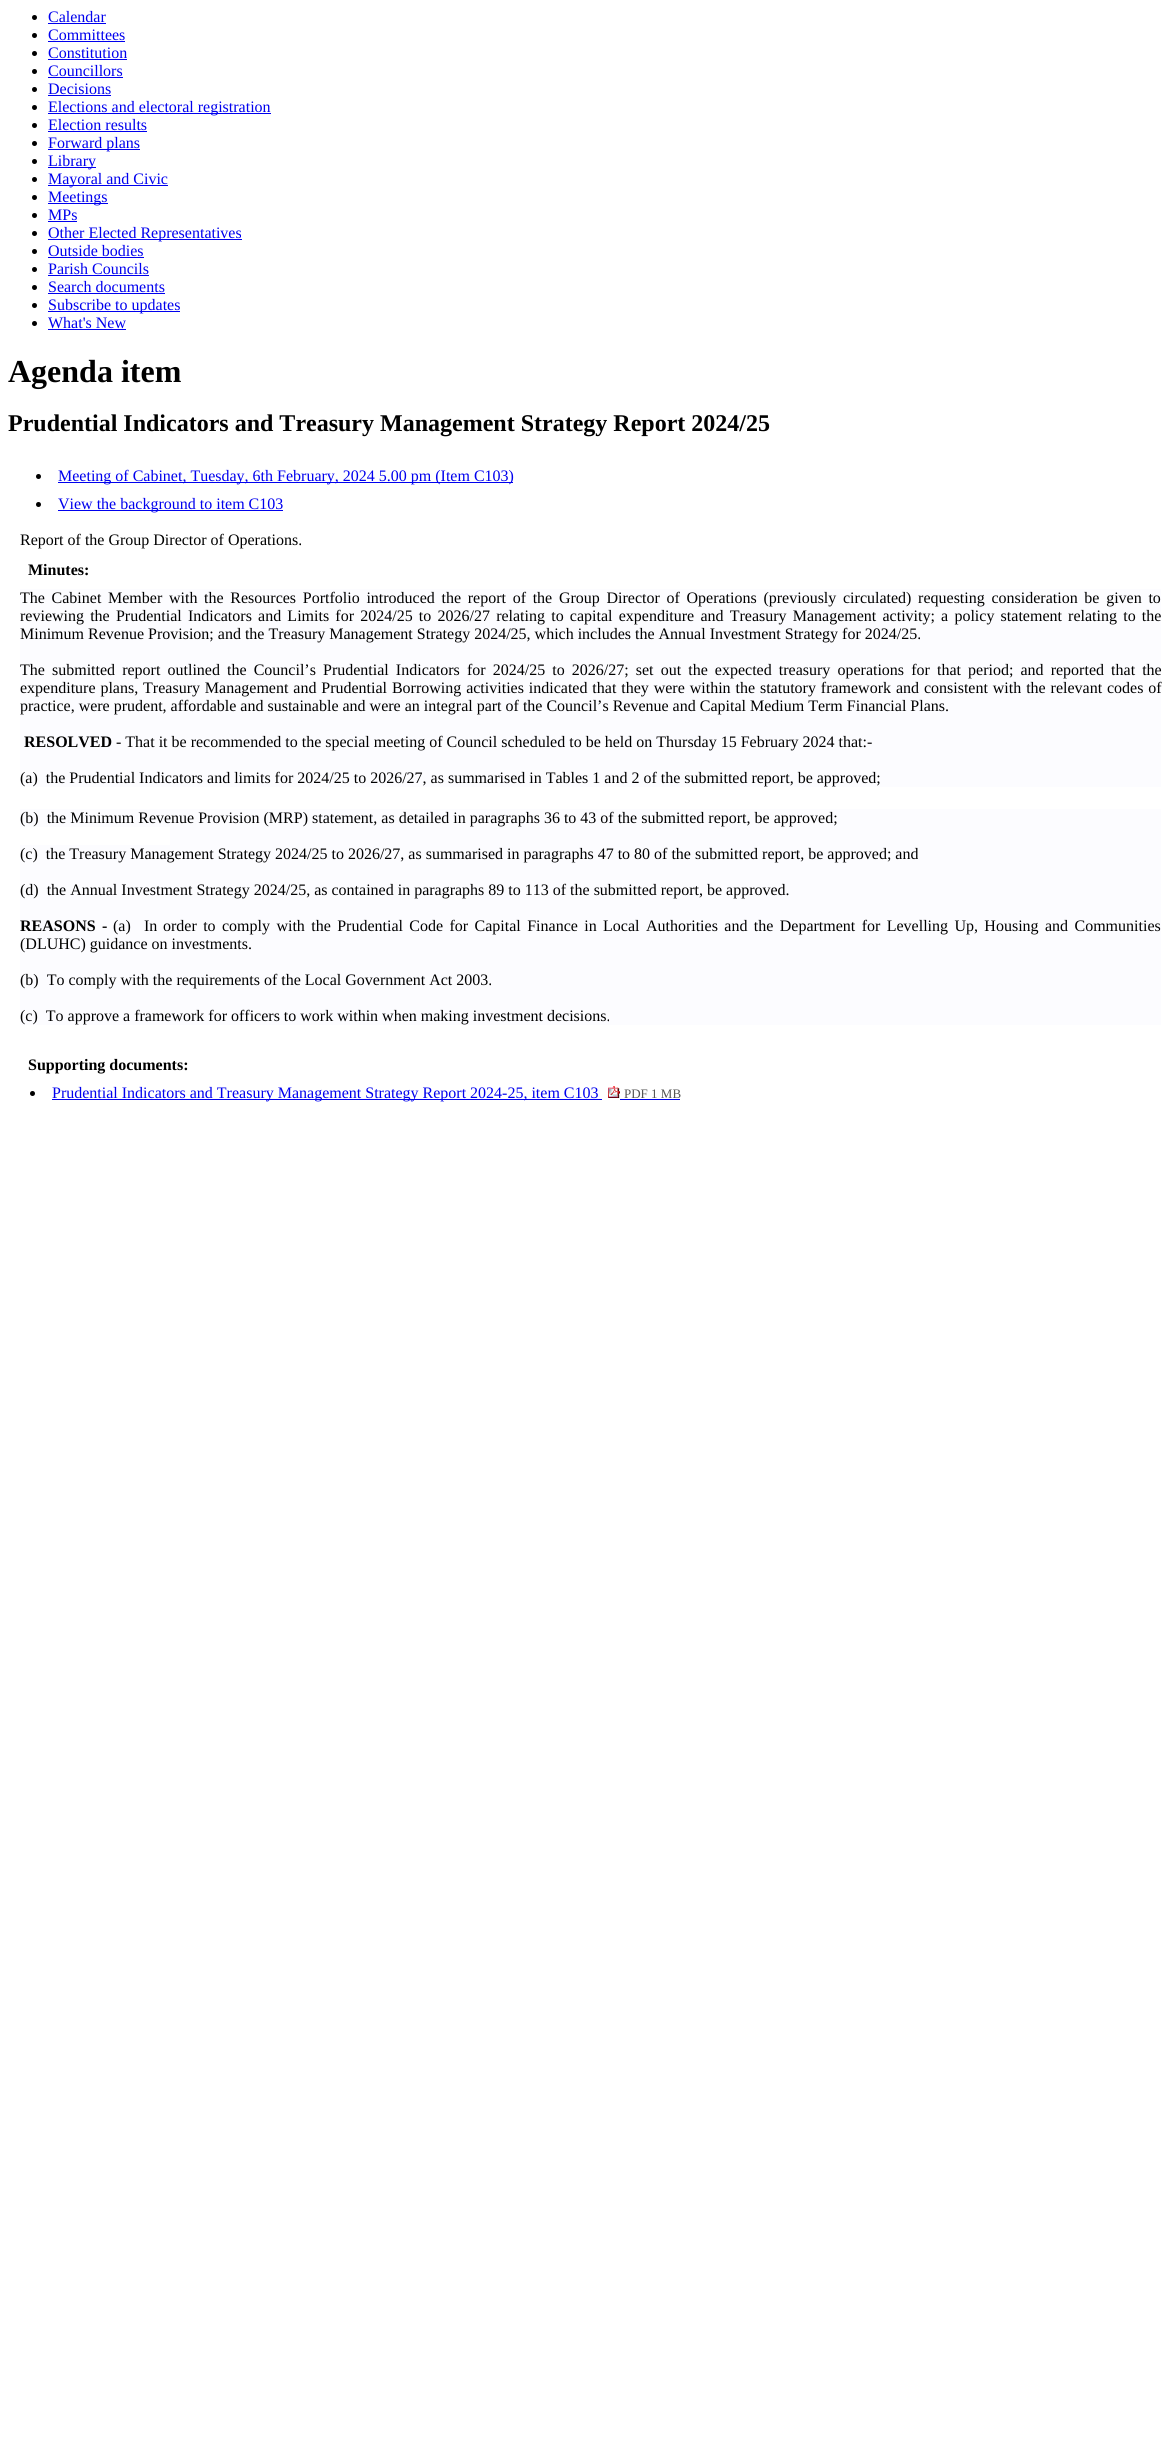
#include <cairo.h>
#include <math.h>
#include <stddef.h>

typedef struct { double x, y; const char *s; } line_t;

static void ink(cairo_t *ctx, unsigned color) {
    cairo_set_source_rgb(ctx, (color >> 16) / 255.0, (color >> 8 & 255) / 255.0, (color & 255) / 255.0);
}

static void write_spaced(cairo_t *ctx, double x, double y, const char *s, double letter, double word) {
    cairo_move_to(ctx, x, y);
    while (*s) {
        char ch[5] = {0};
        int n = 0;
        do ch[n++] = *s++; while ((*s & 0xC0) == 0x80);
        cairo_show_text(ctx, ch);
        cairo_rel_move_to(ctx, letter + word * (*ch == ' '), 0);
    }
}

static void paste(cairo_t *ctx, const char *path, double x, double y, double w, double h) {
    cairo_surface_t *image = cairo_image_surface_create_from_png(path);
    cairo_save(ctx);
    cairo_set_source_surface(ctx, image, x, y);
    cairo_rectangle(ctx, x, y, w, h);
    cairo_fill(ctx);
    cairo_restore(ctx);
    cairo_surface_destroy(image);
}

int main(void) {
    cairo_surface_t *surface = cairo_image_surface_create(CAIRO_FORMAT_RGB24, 1169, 2451);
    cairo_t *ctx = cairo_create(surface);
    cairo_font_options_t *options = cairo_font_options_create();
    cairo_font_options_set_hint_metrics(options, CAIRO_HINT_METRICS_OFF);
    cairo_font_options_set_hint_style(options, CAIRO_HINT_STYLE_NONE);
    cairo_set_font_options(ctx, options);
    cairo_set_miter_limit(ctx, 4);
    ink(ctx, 0xFFFFFF);
    cairo_paint(ctx);
    ink(ctx, 0x000000);
    cairo_arc(ctx, 34.5, 17.5, 2.5, 0, 2 * M_PI);
    cairo_fill(ctx);
    cairo_select_font_face(ctx, "Liberation Serif", CAIRO_FONT_SLANT_NORMAL, CAIRO_FONT_WEIGHT_NORMAL);
    cairo_set_font_size(ctx, 16);
    ink(ctx, 0x0000EE);
    cairo_move_to(ctx, 48, 22);
    cairo_show_text(ctx, "Calendar");
    cairo_rectangle(ctx, 48, 23, 58, 1);
    cairo_fill(ctx);
    ink(ctx, 0x000000);
    cairo_arc(ctx, 34.5, 35.5, 2.5, 0, 2 * M_PI);
    cairo_fill(ctx);
    ink(ctx, 0x0000EE);
    cairo_move_to(ctx, 48, 40);
    cairo_show_text(ctx, "Committees");
    cairo_rectangle(ctx, 48, 41, 77, 1);
    cairo_fill(ctx);
    ink(ctx, 0x000000);
    cairo_arc(ctx, 34.5, 53.5, 2.5, 0, 2 * M_PI);
    cairo_fill(ctx);
    ink(ctx, 0x0000EE);
    cairo_move_to(ctx, 48, 58);
    cairo_show_text(ctx, "Constitution");
    cairo_rectangle(ctx, 48, 59, 79, 1);
    cairo_fill(ctx);
    ink(ctx, 0x000000);
    cairo_arc(ctx, 34.5, 71.5, 2.5, 0, 2 * M_PI);
    cairo_fill(ctx);
    ink(ctx, 0x0000EE);
    cairo_move_to(ctx, 48, 76);
    cairo_show_text(ctx, "Councillors");
    cairo_rectangle(ctx, 48, 77, 75, 1);
    cairo_fill(ctx);
    ink(ctx, 0x000000);
    cairo_arc(ctx, 34.5, 89.5, 2.5, 0, 2 * M_PI);
    cairo_fill(ctx);
    ink(ctx, 0x0000EE);
    cairo_move_to(ctx, 48, 94);
    cairo_show_text(ctx, "Decisions");
    cairo_rectangle(ctx, 48, 95, 63, 1);
    cairo_fill(ctx);
    ink(ctx, 0x000000);
    cairo_arc(ctx, 34.5, 107.5, 2.5, 0, 2 * M_PI);
    cairo_fill(ctx);
    ink(ctx, 0x0000EE);
    cairo_rectangle(ctx, 48, 113, 223, 1);
    cairo_fill(ctx);
    cairo_move_to(ctx, 48, 112);
    cairo_show_text(ctx, "Elections and electoral registration");
    ink(ctx, 0x000000);
    cairo_new_path(ctx);
    cairo_arc(ctx, 34.5, 125.5, 2.5, 0, 2 * M_PI);
    cairo_fill(ctx);
    ink(ctx, 0x0000EE);
    cairo_move_to(ctx, 48, 130);
    cairo_show_text(ctx, "Election results");
    cairo_rectangle(ctx, 48, 131, 99, 1);
    cairo_fill(ctx);
    ink(ctx, 0x000000);
    cairo_arc(ctx, 34.5, 143.5, 2.5, 0, 2 * M_PI);
    cairo_fill(ctx);
    ink(ctx, 0x0000EE);
    cairo_rectangle(ctx, 48, 149, 92, 1);
    cairo_fill(ctx);
    cairo_move_to(ctx, 48, 148);
    cairo_show_text(ctx, "Forward plans");
    ink(ctx, 0x000000);
    cairo_new_path(ctx);
    cairo_arc(ctx, 34.5, 161.5, 2.5, 0, 2 * M_PI);
    cairo_fill(ctx);
    ink(ctx, 0x0000EE);
    cairo_rectangle(ctx, 48, 167, 48, 1);
    cairo_fill(ctx);
    cairo_move_to(ctx, 48, 166);
    cairo_show_text(ctx, "Library");
    ink(ctx, 0x000000);
    cairo_new_path(ctx);
    cairo_arc(ctx, 34.5, 179.5, 2.5, 0, 2 * M_PI);
    cairo_fill(ctx);
    ink(ctx, 0x0000EE);
    cairo_rectangle(ctx, 48, 185, 120, 1);
    cairo_fill(ctx);
    cairo_move_to(ctx, 48, 184);
    cairo_show_text(ctx, "Mayoral and Civic");
    ink(ctx, 0x000000);
    cairo_new_path(ctx);
    cairo_arc(ctx, 34.5, 197.5, 2.5, 0, 2 * M_PI);
    cairo_fill(ctx);
    ink(ctx, 0x0000EE);
    cairo_rectangle(ctx, 48, 203, 60, 1);
    cairo_fill(ctx);
    cairo_move_to(ctx, 48, 202);
    cairo_show_text(ctx, "Meetings");
    ink(ctx, 0x000000);
    cairo_new_path(ctx);
    cairo_arc(ctx, 34.5, 215.5, 2.5, 0, 2 * M_PI);
    cairo_fill(ctx);
    ink(ctx, 0x0000EE);
    cairo_move_to(ctx, 48, 220);
    cairo_show_text(ctx, "MPs");
    cairo_rectangle(ctx, 48, 221, 29, 1);
    cairo_fill(ctx);
    ink(ctx, 0x000000);
    cairo_arc(ctx, 34.5, 233.5, 2.5, 0, 2 * M_PI);
    cairo_fill(ctx);
    ink(ctx, 0x0000EE);
    cairo_rectangle(ctx, 48, 239, 194, 1);
    cairo_fill(ctx);
    cairo_move_to(ctx, 48, 238);
    cairo_show_text(ctx, "Other Elected Representatives");
    ink(ctx, 0x000000);
    cairo_new_path(ctx);
    cairo_arc(ctx, 34.5, 251.5, 2.5, 0, 2 * M_PI);
    cairo_fill(ctx);
    ink(ctx, 0x0000EE);
    cairo_move_to(ctx, 48, 256);
    cairo_show_text(ctx, "Outside bodies");
    cairo_rectangle(ctx, 48, 257, 96, 1);
    cairo_fill(ctx);
    ink(ctx, 0x000000);
    cairo_arc(ctx, 34.5, 269.5, 2.5, 0, 2 * M_PI);
    cairo_fill(ctx);
    ink(ctx, 0x0000EE);
    cairo_move_to(ctx, 48, 274);
    cairo_show_text(ctx, "Parish Councils");
    cairo_rectangle(ctx, 48, 275, 101, 1);
    cairo_fill(ctx);
    ink(ctx, 0x000000);
    cairo_arc(ctx, 34.5, 287.5, 2.5, 0, 2 * M_PI);
    cairo_fill(ctx);
    ink(ctx, 0x0000EE);
    cairo_move_to(ctx, 48, 292);
    cairo_show_text(ctx, "Search documents");
    cairo_rectangle(ctx, 48, 293, 117, 1);
    cairo_fill(ctx);
    ink(ctx, 0x000000);
    cairo_arc(ctx, 34.5, 305.5, 2.5, 0, 2 * M_PI);
    cairo_fill(ctx);
    ink(ctx, 0x0000EE);
    cairo_rectangle(ctx, 48, 311, 132, 1);
    cairo_fill(ctx);
    cairo_move_to(ctx, 48, 310);
    cairo_show_text(ctx, "Subscribe to updates");
    ink(ctx, 0x000000);
    cairo_new_path(ctx);
    cairo_arc(ctx, 34.5, 323.5, 2.5, 0, 2 * M_PI);
    cairo_fill(ctx);
    ink(ctx, 0x0000EE);
    cairo_move_to(ctx, 48, 328);
    cairo_show_text(ctx, "What's New");
    cairo_rectangle(ctx, 48, 329, 78, 1);
    cairo_fill(ctx);
    cairo_select_font_face(ctx, "Liberation Serif", CAIRO_FONT_SLANT_NORMAL, CAIRO_FONT_WEIGHT_BOLD);
    cairo_set_font_size(ctx, 32);
    ink(ctx, 0x000000);
    cairo_move_to(ctx, 8, 382);
    cairo_show_text(ctx, "Agenda item");
    cairo_set_font_size(ctx, 24);
    cairo_move_to(ctx, 8, 431);
    cairo_show_text(ctx, "Prudential Indicators and Treasury Management Strategy Report 2024/25");
    cairo_new_path(ctx);
    cairo_arc(ctx, 38.5, 476.5, 2.5, 0, 2 * M_PI);
    cairo_fill(ctx);
    ink(ctx, 0x0000EE);
    cairo_rectangle(ctx, 58, 482, 455, 1);
    cairo_fill(ctx);
    cairo_select_font_face(ctx, "Liberation Serif", CAIRO_FONT_SLANT_NORMAL, CAIRO_FONT_WEIGHT_NORMAL);
    cairo_set_font_size(ctx, 16);
    cairo_move_to(ctx, 58, 481);
    cairo_show_text(ctx, "Meeting of Cabinet, Tuesday, 6th February, 2024 5.00 pm (Item C103)");
    ink(ctx, 0x000000);
    cairo_new_path(ctx);
    cairo_arc(ctx, 38.5, 504.5, 2.5, 0, 2 * M_PI);
    cairo_fill(ctx);
    ink(ctx, 0x0000EE);
    cairo_rectangle(ctx, 58, 510, 225, 1);
    cairo_fill(ctx);
    cairo_move_to(ctx, 58, 509);
    cairo_show_text(ctx, "View the background to item C103");
    ink(ctx, 0x000000);
    cairo_move_to(ctx, 20, 545);
    cairo_show_text(ctx, "Report of the Group Director of Operations.");
    cairo_select_font_face(ctx, "Liberation Serif", CAIRO_FONT_SLANT_NORMAL, CAIRO_FONT_WEIGHT_BOLD);
    cairo_move_to(ctx, 28, 575);
    cairo_show_text(ctx, "Minutes:");
    ink(ctx, 0xFCFCFF);
    cairo_rectangle(ctx, 20, 589, 1141, 198);
    cairo_fill(ctx);
    cairo_select_font_face(ctx, "Liberation Serif", CAIRO_FONT_SLANT_NORMAL, CAIRO_FONT_WEIGHT_NORMAL);
    ink(ctx, 0x000000);
    write_spaced(ctx, 20, 603, "The Cabinet Member with the Resources Portfolio introduced the report of the Group Director of Operations (previously circulated) requesting consideration be given to", 0, 2.7);
    write_spaced(ctx, 20, 621, "reviewing the Prudential Indicators and Limits for 2024/25 to 2026/27 relating to capital expenditure and Treasury Management activity; a policy statement relating to the", 0, 2.2);
    cairo_move_to(ctx, 20, 639);
    cairo_show_text(ctx, "Minimum Revenue Provision; and the Treasury Management Strategy 2024/25, which includes the Annual Investment Strategy for 2024/25.");
    write_spaced(ctx, 20, 675, "The submitted report outlined the Council’s Prudential Indicators for 2024/25 to 2026/27; set out the expected treasury operations for that period; and reported that the", 0, 3.1);
    write_spaced(ctx, 20, 693, "expenditure plans, Treasury Management and Prudential Borrowing activities indicated that they were within the statutory framework and consistent with the relevant codes of", 0, 0.9);
    cairo_move_to(ctx, 20, 711);
    cairo_show_text(ctx, "practice, were prudent, affordable and sustainable and were an integral part of the Council’s Revenue and Capital Medium Term Financial Plans.");
    cairo_select_font_face(ctx, "Liberation Serif", CAIRO_FONT_SLANT_NORMAL, CAIRO_FONT_WEIGHT_BOLD);
    cairo_move_to(ctx, 24, 747);
    cairo_show_text(ctx, "RESOLVED");
    cairo_select_font_face(ctx, "Liberation Serif", CAIRO_FONT_SLANT_NORMAL, CAIRO_FONT_WEIGHT_NORMAL);
    cairo_move_to(ctx, 116, 747);
    cairo_show_text(ctx, "- That it be recommended to the special meeting of Council scheduled to be held on Thursday 15 February 2024 that:-");
    cairo_move_to(ctx, 20, 783);
    cairo_show_text(ctx, "(a)  the Prudential Indicators and limits for 2024/25 to 2026/27, as summarised in Tables 1 and 2 of the submitted report, be approved;");
    ink(ctx, 0xFCFCFF);
    cairo_rectangle(ctx, 20, 809, 1141, 18);
    cairo_fill(ctx);
    ink(ctx, 0x000000);
    cairo_move_to(ctx, 20, 823);
    cairo_show_text(ctx, "(b)  the Minimum Revenue Provision (MRP) statement, as detailed in paragraphs 36 to 43 of the submitted report, be approved;");
    ink(ctx, 0xFCFCFF);
    cairo_rectangle(ctx, 170, 827, 991, 18);
    cairo_fill(ctx);
    cairo_rectangle(ctx, 20, 845, 1141, 180);
    cairo_fill(ctx);
    ink(ctx, 0x000000);
    cairo_move_to(ctx, 20, 859);
    cairo_show_text(ctx, "(c)  the Treasury Management Strategy 2024/25 to 2026/27, as summarised in paragraphs 47 to 80 of the submitted report, be approved; and");
    cairo_move_to(ctx, 20, 895);
    cairo_show_text(ctx, "(d)  the Annual Investment Strategy 2024/25, as contained in paragraphs 89 to 113 of the submitted report, be approved.");
    cairo_select_font_face(ctx, "Liberation Serif", CAIRO_FONT_SLANT_NORMAL, CAIRO_FONT_WEIGHT_BOLD);
    write_spaced(ctx, 20, 931, "REASONS -", 0, 2.4);
    cairo_select_font_face(ctx, "Liberation Serif", CAIRO_FONT_SLANT_NORMAL, CAIRO_FONT_WEIGHT_NORMAL);
    cairo_move_to(ctx, 113, 931);
    cairo_show_text(ctx, "(a)");
    cairo_move_to(ctx, 144, 931);
    cairo_show_text(ctx, "In");
    write_spaced(ctx, 163, 931, "order to comply with the Prudential Code for Capital Finance in Local Authorities and the Department for Levelling Up, Housing and Communities", 0, 2.4);
    {
        static const line_t items[] = {
            {20, 949, "(DLUHC) guidance on investments."},
            {20, 985, "(b)  To comply with the requirements of the Local Government Act 2003."},
            {20, 1021, "(c)  To approve a framework for officers to work within when making investment decisions."},
        };
        for (size_t i = 0; i < sizeof items / sizeof *items; i++) {
            cairo_move_to(ctx, items[i].x, items[i].y);
            cairo_show_text(ctx, items[i].s);
        }
    }
    cairo_select_font_face(ctx, "Liberation Serif", CAIRO_FONT_SLANT_NORMAL, CAIRO_FONT_WEIGHT_BOLD);
    cairo_move_to(ctx, 28, 1070);
    cairo_show_text(ctx, "Supporting documents:");
    cairo_new_path(ctx);
    cairo_arc(ctx, 32.5, 1093.5, 2.5, 0, 2 * M_PI);
    cairo_fill(ctx);
    ink(ctx, 0x0000EE);
    cairo_rectangle(ctx, 52, 1099, 550, 1);
    cairo_fill(ctx);
    cairo_select_font_face(ctx, "Liberation Serif", CAIRO_FONT_SLANT_NORMAL, CAIRO_FONT_WEIGHT_NORMAL);
    cairo_move_to(ctx, 52, 1098);
    cairo_show_text(ctx, "Prudential Indicators and Treasury Management Strategy Report 2024-25, item C103");
    paste(ctx, "media/1.png", 608, 1086, 12, 12);
    cairo_set_font_size(ctx, 13);
    ink(ctx, 0x555555);
    cairo_move_to(ctx, 624, 1098);
    cairo_show_text(ctx, "PDF 1 MB");
    ink(ctx, 0x0000EE);
    cairo_rectangle(ctx, 620, 1099, 60, 1);
    cairo_fill(ctx);
    cairo_surface_write_to_png(surface, "image.png");
    cairo_font_options_destroy(options);
    cairo_destroy(ctx);
    cairo_surface_destroy(surface);
    return 0;
}
